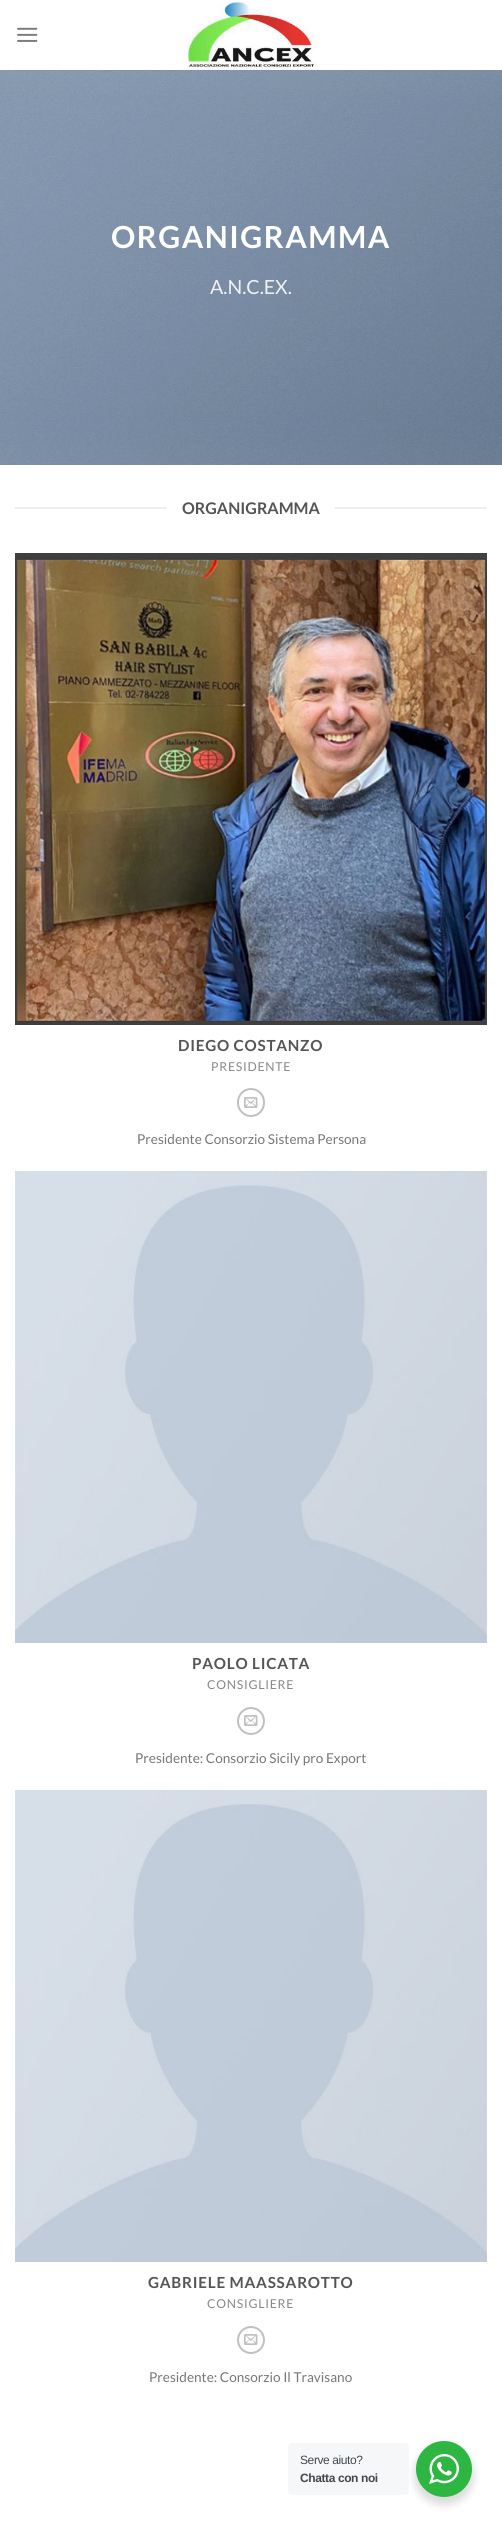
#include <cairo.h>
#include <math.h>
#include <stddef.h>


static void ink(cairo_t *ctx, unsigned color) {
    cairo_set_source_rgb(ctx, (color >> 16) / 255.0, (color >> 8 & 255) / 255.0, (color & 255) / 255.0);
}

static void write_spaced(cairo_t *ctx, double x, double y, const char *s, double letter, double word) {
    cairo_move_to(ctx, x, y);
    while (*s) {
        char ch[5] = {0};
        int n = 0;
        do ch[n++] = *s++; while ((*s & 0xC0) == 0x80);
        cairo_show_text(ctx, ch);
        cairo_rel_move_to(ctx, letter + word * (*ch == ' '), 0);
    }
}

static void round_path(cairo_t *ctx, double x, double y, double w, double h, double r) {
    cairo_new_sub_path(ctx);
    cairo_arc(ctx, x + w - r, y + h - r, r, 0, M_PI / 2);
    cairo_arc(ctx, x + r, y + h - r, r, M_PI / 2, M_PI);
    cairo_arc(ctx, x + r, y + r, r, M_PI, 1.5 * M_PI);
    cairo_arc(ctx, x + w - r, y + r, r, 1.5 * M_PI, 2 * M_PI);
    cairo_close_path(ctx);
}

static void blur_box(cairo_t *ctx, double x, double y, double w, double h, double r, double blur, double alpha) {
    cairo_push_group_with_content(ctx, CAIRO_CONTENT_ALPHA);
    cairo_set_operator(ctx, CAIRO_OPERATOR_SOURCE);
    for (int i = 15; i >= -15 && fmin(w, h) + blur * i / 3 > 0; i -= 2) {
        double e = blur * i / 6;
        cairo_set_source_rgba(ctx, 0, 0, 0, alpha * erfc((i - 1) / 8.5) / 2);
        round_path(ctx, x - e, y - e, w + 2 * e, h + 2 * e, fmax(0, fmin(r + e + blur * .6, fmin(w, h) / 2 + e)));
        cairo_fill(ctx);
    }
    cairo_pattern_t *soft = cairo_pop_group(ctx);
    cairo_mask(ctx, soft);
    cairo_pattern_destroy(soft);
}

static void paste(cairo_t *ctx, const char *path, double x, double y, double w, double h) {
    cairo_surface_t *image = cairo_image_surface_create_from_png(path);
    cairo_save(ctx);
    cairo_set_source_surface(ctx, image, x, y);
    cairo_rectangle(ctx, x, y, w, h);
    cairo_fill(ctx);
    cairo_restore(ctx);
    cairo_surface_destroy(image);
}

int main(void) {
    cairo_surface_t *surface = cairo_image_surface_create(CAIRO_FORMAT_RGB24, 502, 2527);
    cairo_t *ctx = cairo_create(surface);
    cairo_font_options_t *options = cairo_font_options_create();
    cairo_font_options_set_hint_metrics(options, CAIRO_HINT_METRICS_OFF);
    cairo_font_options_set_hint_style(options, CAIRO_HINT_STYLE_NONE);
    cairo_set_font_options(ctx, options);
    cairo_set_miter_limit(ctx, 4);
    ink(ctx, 0xFFFFFF);
    cairo_paint(ctx);
    paste(ctx, "media/1.png", 17, 27, 21, 15);
    paste(ctx, "media/2.png", 188, 1, 129, 69);
    paste(ctx, "media/3.png", 0, 70, 502, 395);
    cairo_set_source_rgba(ctx, 0.467, 0.467, 0.467, 0.1);
    cairo_rectangle(ctx, 15, 70, 472, 1);
    cairo_fill(ctx);
    cairo_select_font_face(ctx, "Lato", CAIRO_FONT_SLANT_NORMAL, CAIRO_FONT_WEIGHT_BOLD);
    cairo_set_font_size(ctx, 30.4);
    ink(ctx, 0xFFFFFF);
    write_spaced(ctx, 111, 248, "ORGANIGRAMMA", 1.5, 0);
    cairo_select_font_face(ctx, "Lato", CAIRO_FONT_SLANT_NORMAL, CAIRO_FONT_WEIGHT_NORMAL);
    cairo_set_font_size(ctx, 19.5);
    ink(ctx, 0xF1F1F1);
    cairo_move_to(ctx, 210, 294);
    cairo_show_text(ctx, "A.N.C.EX.");
    ink(ctx, 0xEEEEEE);
    cairo_rectangle(ctx, 15, 507, 152, 2);
    cairo_fill(ctx);
    cairo_select_font_face(ctx, "Lato", CAIRO_FONT_SLANT_NORMAL, CAIRO_FONT_WEIGHT_BOLD);
    cairo_set_font_size(ctx, 16);
    ink(ctx, 0x555555);
    cairo_move_to(ctx, 182, 514);
    cairo_show_text(ctx, "ORGANIGRAMMA");
    ink(ctx, 0xEEEEEE);
    cairo_rectangle(ctx, 335, 507, 152, 2);
    cairo_fill(ctx);
    paste(ctx, "media/4.png", 15, 553, 472, 472);
    cairo_set_font_size(ctx, 15.25);
    ink(ctx, 0x555555);
    write_spaced(ctx, 178, 1051, "DIEGO COSTANZO", 0.75, 0);
    cairo_select_font_face(ctx, "Lato", CAIRO_FONT_SLANT_NORMAL, CAIRO_FONT_WEIGHT_NORMAL);
    cairo_set_font_size(ctx, 12.25);
    ink(ctx, 0x888888);
    write_spaced(ctx, 211, 1071, "PRESIDENTE", 0.75, 0);
    round_path(ctx, 238, 1089, 26, 27, 13);
    ink(ctx, 0xC0C0C0);
    cairo_stroke(ctx);
    paste(ctx, "media/5.png", 244, 1097, 14, 11);
    cairo_set_font_size(ctx, 13.6);
    ink(ctx, 0x777777);
    cairo_move_to(ctx, 137, 1144);
    cairo_show_text(ctx, "Presidente Consorzio Sistema Persona");
    paste(ctx, "media/6.png", 15, 1171, 472, 472);
    cairo_select_font_face(ctx, "Lato", CAIRO_FONT_SLANT_NORMAL, CAIRO_FONT_WEIGHT_BOLD);
    cairo_set_font_size(ctx, 15.25);
    ink(ctx, 0x555555);
    write_spaced(ctx, 192, 1669, "PAOLO LICATA", 0.75, 0);
    cairo_select_font_face(ctx, "Lato", CAIRO_FONT_SLANT_NORMAL, CAIRO_FONT_WEIGHT_NORMAL);
    cairo_set_font_size(ctx, 12.25);
    ink(ctx, 0x888888);
    write_spaced(ctx, 207, 1689, "CONSIGLIERE", 0.75, 0);
    cairo_new_path(ctx);
    cairo_arc(ctx, 251, 1721, 13, 0, 2 * M_PI);
    ink(ctx, 0xC0C0C0);
    cairo_stroke(ctx);
    paste(ctx, "media/5.png", 244, 1715, 14, 11);
    cairo_set_font_size(ctx, 13.6);
    ink(ctx, 0x777777);
    cairo_move_to(ctx, 135, 1763);
    cairo_show_text(ctx, "Presidente: Consorzio Sicily pro Export");
    paste(ctx, "media/7.png", 15, 1790, 472, 472);
    cairo_select_font_face(ctx, "Lato", CAIRO_FONT_SLANT_NORMAL, CAIRO_FONT_WEIGHT_BOLD);
    cairo_set_font_size(ctx, 15.25);
    ink(ctx, 0x555555);
    write_spaced(ctx, 148, 2288, "GABRIELE MAASSAROTTO", 0.75, 0);
    cairo_select_font_face(ctx, "Lato", CAIRO_FONT_SLANT_NORMAL, CAIRO_FONT_WEIGHT_NORMAL);
    cairo_set_font_size(ctx, 12.25);
    ink(ctx, 0x888888);
    write_spaced(ctx, 207, 2308, "CONSIGLIERE", 0.75, 0);
    cairo_new_path(ctx);
    cairo_arc(ctx, 251, 2340, 13, 0, 2 * M_PI);
    ink(ctx, 0xC0C0C0);
    cairo_stroke(ctx);
    paste(ctx, "media/5.png", 244, 2334, 14, 11);
    cairo_set_font_size(ctx, 13.6);
    ink(ctx, 0x777777);
    cairo_move_to(ctx, 149, 2382);
    cairo_show_text(ctx, "Presidente: Consorzio Il Travisano");
    ink(ctx, 0x000000);
    blur_box(ctx, 414, 2445, 60, 60, 30, 4, 0.14);
    ink(ctx, 0xF5F7F9);
    round_path(ctx, 288, 2443, 121, 52, 4);
    cairo_fill(ctx);
    cairo_select_font_face(ctx, "Liberation Sans", CAIRO_FONT_SLANT_NORMAL, CAIRO_FONT_WEIGHT_NORMAL);
    cairo_set_font_size(ctx, 12);
    ink(ctx, 0x43474E);
    write_spaced(ctx, 300, 2464, "Serve aiuto?", -0.4, 0);
    cairo_select_font_face(ctx, "Liberation Sans", CAIRO_FONT_SLANT_NORMAL, CAIRO_FONT_WEIGHT_BOLD);
    write_spaced(ctx, 300, 2482, "Chatta con noi", -0.4, 0);
    ink(ctx, 0x2DB742);
    cairo_new_path(ctx);
    cairo_arc(ctx, 444, 2469, 28, 0, 2 * M_PI);
    cairo_fill(ctx);
    paste(ctx, "media/8.png", 429, 2454, 30, 30);
    cairo_surface_write_to_png(surface, "image.png");
    cairo_font_options_destroy(options);
    cairo_destroy(ctx);
    cairo_surface_destroy(surface);
    return 0;
}
